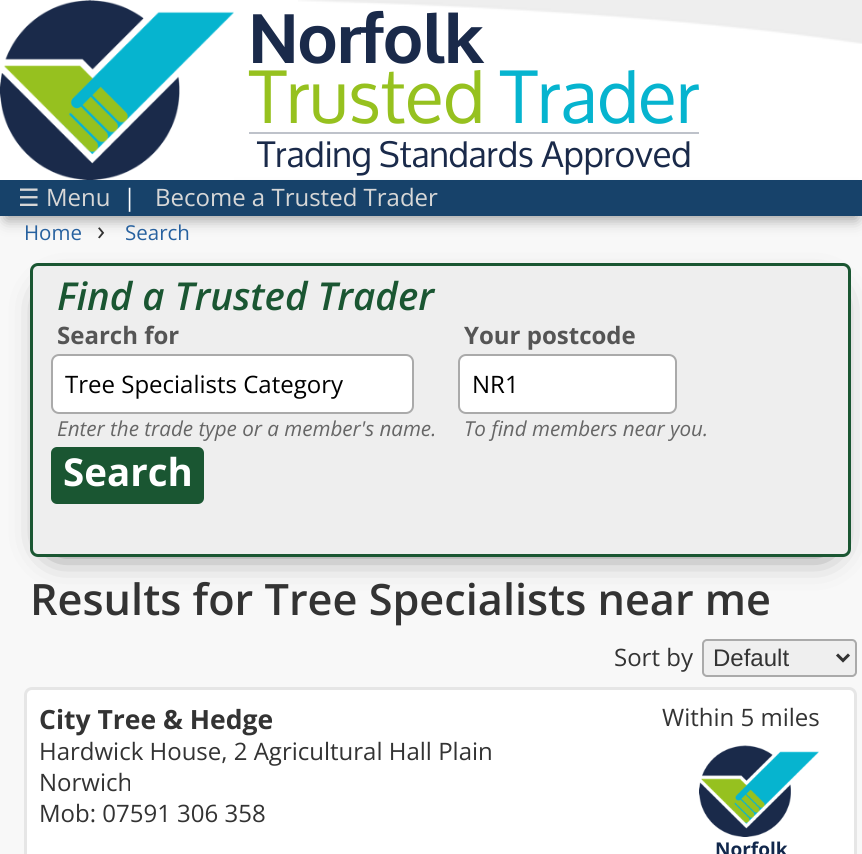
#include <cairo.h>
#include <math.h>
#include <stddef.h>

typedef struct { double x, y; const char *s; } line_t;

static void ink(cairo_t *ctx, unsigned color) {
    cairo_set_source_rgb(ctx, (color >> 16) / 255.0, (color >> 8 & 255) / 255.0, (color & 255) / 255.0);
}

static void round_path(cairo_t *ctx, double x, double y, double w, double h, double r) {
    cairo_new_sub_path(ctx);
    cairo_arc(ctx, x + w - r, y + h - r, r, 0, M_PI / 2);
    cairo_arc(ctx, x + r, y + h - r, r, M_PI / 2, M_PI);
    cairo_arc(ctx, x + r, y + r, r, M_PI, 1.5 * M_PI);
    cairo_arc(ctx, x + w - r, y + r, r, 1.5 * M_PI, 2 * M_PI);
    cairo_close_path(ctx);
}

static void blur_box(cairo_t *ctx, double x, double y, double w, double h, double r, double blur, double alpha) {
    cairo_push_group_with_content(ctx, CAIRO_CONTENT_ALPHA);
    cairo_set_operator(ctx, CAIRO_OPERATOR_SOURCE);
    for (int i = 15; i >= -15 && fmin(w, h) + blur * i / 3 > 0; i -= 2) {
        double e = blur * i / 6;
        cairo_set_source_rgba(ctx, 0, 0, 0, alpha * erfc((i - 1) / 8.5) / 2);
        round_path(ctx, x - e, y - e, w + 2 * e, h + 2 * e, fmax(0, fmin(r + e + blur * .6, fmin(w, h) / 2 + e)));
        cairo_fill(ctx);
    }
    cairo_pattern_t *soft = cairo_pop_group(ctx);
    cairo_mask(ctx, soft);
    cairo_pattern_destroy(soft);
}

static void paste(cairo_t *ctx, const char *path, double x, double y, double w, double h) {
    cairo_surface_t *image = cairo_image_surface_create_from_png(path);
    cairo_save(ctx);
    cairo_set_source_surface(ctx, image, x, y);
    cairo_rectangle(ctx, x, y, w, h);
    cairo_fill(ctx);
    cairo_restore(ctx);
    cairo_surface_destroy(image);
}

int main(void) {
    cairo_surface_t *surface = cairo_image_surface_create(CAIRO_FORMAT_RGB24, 862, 854);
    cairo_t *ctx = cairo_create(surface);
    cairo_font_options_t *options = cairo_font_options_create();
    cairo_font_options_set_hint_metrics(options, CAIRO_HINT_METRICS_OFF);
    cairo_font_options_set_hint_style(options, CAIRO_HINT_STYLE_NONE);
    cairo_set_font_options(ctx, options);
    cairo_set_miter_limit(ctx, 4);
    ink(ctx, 0xF8F8F8);
    cairo_paint(ctx);
    ink(ctx, 0xFFFFFF);
    cairo_rectangle(ctx, 234, 0, 628, 180);
    cairo_fill(ctx);
    paste(ctx, "media/1.png", 298, 0, 564, 44);
    ink(ctx, 0x999999);
    blur_box(ctx, 6, 195, 851, 24, 0, 7.5, 1);
    ink(ctx, 0xFFFFFF);
    cairo_rectangle(ctx, 0, 0, 234, 180);
    cairo_fill(ctx);
    paste(ctx, "media/2.png", 0, 0, 234, 180);
    cairo_select_font_face(ctx, "Oxygen", CAIRO_FONT_SLANT_NORMAL, CAIRO_FONT_WEIGHT_BOLD);
    cairo_set_font_size(ctx, 69);
    ink(ctx, 0x1A2A4A);
    cairo_move_to(ctx, 249, 63);
    cairo_show_text(ctx, "Norfolk");
    ink(ctx, 0xBEC2CA);
    cairo_rectangle(ctx, 249, 132, 450, 2);
    cairo_fill(ctx);
    cairo_select_font_face(ctx, "Oxygen", CAIRO_FONT_SLANT_NORMAL, CAIRO_FONT_WEIGHT_NORMAL);
    cairo_set_font_size(ctx, 72);
    ink(ctx, 0x96C11F);
    cairo_move_to(ctx, 249, 123);
    cairo_show_text(ctx, "Trusted");
    ink(ctx, 0x06B4CF);
    cairo_move_to(ctx, 500, 123);
    cairo_show_text(ctx, "Trader");
    cairo_set_font_size(ctx, 35.1);
    ink(ctx, 0x1A2A4A);
    cairo_move_to(ctx, 257, 167);
    cairo_show_text(ctx, "Trading Standards Approved");
    ink(ctx, 0x17426A);
    cairo_rectangle(ctx, 0, 180, 862, 36);
    cairo_fill(ctx);
    cairo_select_font_face(ctx, "DejaVu Sans", CAIRO_FONT_SLANT_NORMAL, CAIRO_FONT_WEIGHT_NORMAL);
    cairo_set_font_size(ctx, 24);
    ink(ctx, 0xD7D7D7);
    cairo_move_to(ctx, 18, 206);
    cairo_show_text(ctx, "☰");
    cairo_select_font_face(ctx, "Open Sans", CAIRO_FONT_SLANT_NORMAL, CAIRO_FONT_WEIGHT_NORMAL);
    cairo_move_to(ctx, 46, 206);
    cairo_show_text(ctx, "Menu");
    ink(ctx, 0xFFFFFF);
    cairo_move_to(ctx, 123, 206);
    cairo_show_text(ctx, "|");
    ink(ctx, 0xD7D7D7);
    cairo_move_to(ctx, 155, 206);
    cairo_show_text(ctx, "Become a Trusted Trader");
    cairo_set_font_size(ctx, 20.5);
    ink(ctx, 0x27619F);
    cairo_move_to(ctx, 24, 240);
    cairo_show_text(ctx, "Home");
    cairo_set_font_size(ctx, 27);
    ink(ctx, 0x333333);
    cairo_move_to(ctx, 97, 240);
    cairo_show_text(ctx, "›");
    cairo_set_font_size(ctx, 20.5);
    ink(ctx, 0x27619F);
    cairo_move_to(ctx, 125, 240);
    cairo_show_text(ctx, "Search");
    ink(ctx, 0x000000);
    blur_box(ctx, 56, 300, 769, 243, 0, 19, 1);
    ink(ctx, 0xEEEEEE);
    round_path(ctx, 31.5, 264.5, 818, 291, 6.5);
    cairo_fill_preserve(ctx);
    ink(ctx, 0x1A5632);
    cairo_set_line_width(ctx, 3);
    cairo_stroke(ctx);
    cairo_select_font_face(ctx, "Open Sans SemiBold", CAIRO_FONT_SLANT_ITALIC, CAIRO_FONT_WEIGHT_NORMAL);
    cairo_set_font_size(ctx, 38.5);
    cairo_move_to(ctx, 57, 310);
    cairo_show_text(ctx, "Find a Trusted Trader");
    cairo_select_font_face(ctx, "Open Sans", CAIRO_FONT_SLANT_NORMAL, CAIRO_FONT_WEIGHT_BOLD);
    cairo_set_font_size(ctx, 24);
    ink(ctx, 0x555555);
    cairo_move_to(ctx, 57, 344);
    cairo_show_text(ctx, "Search for");
    ink(ctx, 0xFFFFFF);
    round_path(ctx, 52, 355, 361, 58, 7);
    cairo_fill_preserve(ctx);
    ink(ctx, 0xAAAAAA);
    cairo_set_line_width(ctx, 2);
    cairo_stroke(ctx);
    cairo_select_font_face(ctx, "Open Sans", CAIRO_FONT_SLANT_NORMAL, CAIRO_FONT_WEIGHT_NORMAL);
    ink(ctx, 0x000000);
    cairo_move_to(ctx, 65, 393);
    cairo_show_text(ctx, "Tree Specialists Category");
    cairo_select_font_face(ctx, "Open Sans", CAIRO_FONT_SLANT_ITALIC, CAIRO_FONT_WEIGHT_NORMAL);
    cairo_set_font_size(ctx, 20.6);
    ink(ctx, 0x666666);
    cairo_move_to(ctx, 57, 436);
    cairo_show_text(ctx, "Enter the trade type or a member's name.");
    cairo_select_font_face(ctx, "Open Sans", CAIRO_FONT_SLANT_NORMAL, CAIRO_FONT_WEIGHT_BOLD);
    cairo_set_font_size(ctx, 24);
    ink(ctx, 0x555555);
    cairo_move_to(ctx, 464, 344);
    cairo_show_text(ctx, "Your postcode");
    ink(ctx, 0xFFFFFF);
    round_path(ctx, 459, 355, 217, 58, 7);
    cairo_fill_preserve(ctx);
    ink(ctx, 0xAAAAAA);
    cairo_stroke(ctx);
    cairo_select_font_face(ctx, "Open Sans", CAIRO_FONT_SLANT_NORMAL, CAIRO_FONT_WEIGHT_NORMAL);
    ink(ctx, 0x000000);
    cairo_move_to(ctx, 472, 393);
    cairo_show_text(ctx, "NR1");
    cairo_select_font_face(ctx, "Open Sans", CAIRO_FONT_SLANT_ITALIC, CAIRO_FONT_WEIGHT_NORMAL);
    cairo_set_font_size(ctx, 20.6);
    ink(ctx, 0x666666);
    cairo_move_to(ctx, 464, 436);
    cairo_show_text(ctx, "To find members near you.");
    ink(ctx, 0x1A5632);
    round_path(ctx, 52, 448, 151, 55, 5);
    cairo_fill_preserve(ctx);
    cairo_stroke(ctx);
    cairo_select_font_face(ctx, "Open Sans", CAIRO_FONT_SLANT_NORMAL, CAIRO_FONT_WEIGHT_BOLD);
    cairo_set_font_size(ctx, 38.5);
    ink(ctx, 0xFFFFFF);
    cairo_move_to(ctx, 63, 486);
    cairo_show_text(ctx, "Search");
    cairo_select_font_face(ctx, "Open Sans SemiBold", CAIRO_FONT_SLANT_NORMAL, CAIRO_FONT_WEIGHT_NORMAL);
    cairo_set_font_size(ctx, 43.25);
    ink(ctx, 0x333333);
    cairo_move_to(ctx, 30, 615);
    cairo_show_text(ctx, "Results for Tree Specialists near me");
    cairo_select_font_face(ctx, "Open Sans", CAIRO_FONT_SLANT_NORMAL, CAIRO_FONT_WEIGHT_NORMAL);
    cairo_set_font_size(ctx, 24);
    cairo_move_to(ctx, 614, 666);
    cairo_show_text(ctx, "Sort by");
    ink(ctx, 0xEFEFEF);
    round_path(ctx, 703, 640, 153, 36, 4);
    cairo_fill_preserve(ctx);
    ink(ctx, 0xAAAAAA);
    cairo_stroke(ctx);
    cairo_new_path(ctx);
    cairo_move_to(ctx, 837, 654.5);
    cairo_line_to(ctx, 843, 660.5);
    cairo_line_to(ctx, 849, 654.5);
    ink(ctx, 0x333333);
    cairo_set_line_width(ctx, 3);
    cairo_stroke(ctx);
    cairo_select_font_face(ctx, "Liberation Sans", CAIRO_FONT_SLANT_NORMAL, CAIRO_FONT_WEIGHT_NORMAL);
    cairo_move_to(ctx, 713, 666);
    cairo_show_text(ctx, "Default");
    ink(ctx, 0xFFFFFF);
    round_path(ctx, 25.5, 688.5, 830, 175, 6.5);
    cairo_fill_preserve(ctx);
    ink(ctx, 0xE6E6E6);
    cairo_stroke(ctx);
    cairo_select_font_face(ctx, "Open Sans", CAIRO_FONT_SLANT_NORMAL, CAIRO_FONT_WEIGHT_BOLD);
    cairo_set_font_size(ctx, 26.5);
    ink(ctx, 0x333333);
    cairo_move_to(ctx, 39, 729);
    cairo_show_text(ctx, "City Tree & Hedge");
    cairo_select_font_face(ctx, "Open Sans", CAIRO_FONT_SLANT_NORMAL, CAIRO_FONT_WEIGHT_NORMAL);
    cairo_set_font_size(ctx, 24);
    cairo_move_to(ctx, 662, 726);
    cairo_show_text(ctx, "Within 5 miles");
    paste(ctx, "media/3.png", 699, 745, 120, 92);
    cairo_select_font_face(ctx, "Open Sans", CAIRO_FONT_SLANT_NORMAL, CAIRO_FONT_WEIGHT_BOLD);
    cairo_set_font_size(ctx, 19);
    ink(ctx, 0x12284C);
    cairo_move_to(ctx, 715, 856);
    cairo_show_text(ctx, "Norfolk");
    cairo_select_font_face(ctx, "Open Sans", CAIRO_FONT_SLANT_NORMAL, CAIRO_FONT_WEIGHT_NORMAL);
    cairo_set_font_size(ctx, 24);
    ink(ctx, 0x333333);
    {
        static const line_t items[] = {
            {39, 760, "Hardwick House, 2 Agricultural Hall Plain"},
            {39, 791, "Norwich"},
            {39, 822, "Mob: 07591 306 358"},
        };
        for (size_t i = 0; i < sizeof items / sizeof *items; i++) {
            cairo_move_to(ctx, items[i].x, items[i].y);
            cairo_show_text(ctx, items[i].s);
        }
    }
    cairo_surface_write_to_png(surface, "image.png");
    cairo_font_options_destroy(options);
    cairo_destroy(ctx);
    cairo_surface_destroy(surface);
    return 0;
}
